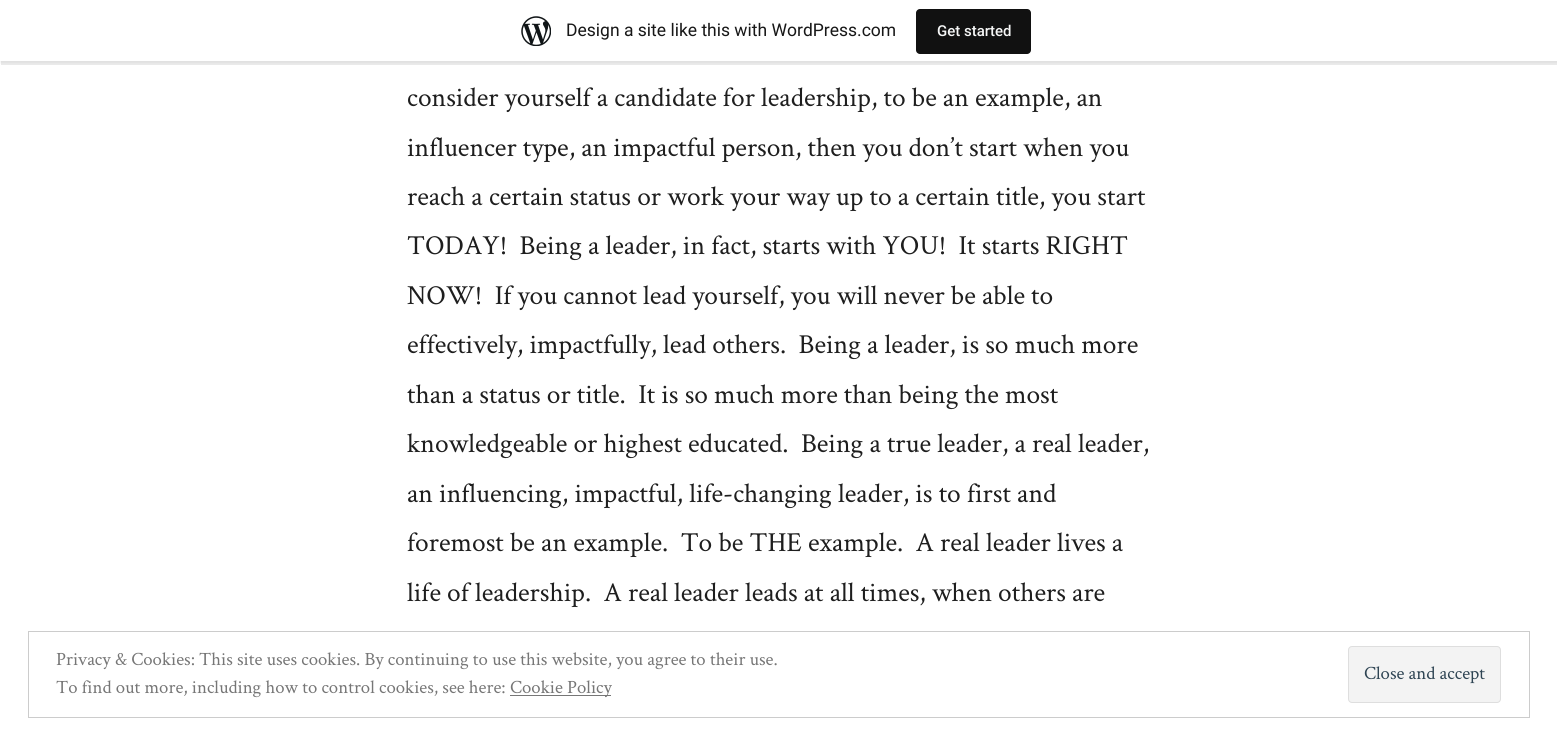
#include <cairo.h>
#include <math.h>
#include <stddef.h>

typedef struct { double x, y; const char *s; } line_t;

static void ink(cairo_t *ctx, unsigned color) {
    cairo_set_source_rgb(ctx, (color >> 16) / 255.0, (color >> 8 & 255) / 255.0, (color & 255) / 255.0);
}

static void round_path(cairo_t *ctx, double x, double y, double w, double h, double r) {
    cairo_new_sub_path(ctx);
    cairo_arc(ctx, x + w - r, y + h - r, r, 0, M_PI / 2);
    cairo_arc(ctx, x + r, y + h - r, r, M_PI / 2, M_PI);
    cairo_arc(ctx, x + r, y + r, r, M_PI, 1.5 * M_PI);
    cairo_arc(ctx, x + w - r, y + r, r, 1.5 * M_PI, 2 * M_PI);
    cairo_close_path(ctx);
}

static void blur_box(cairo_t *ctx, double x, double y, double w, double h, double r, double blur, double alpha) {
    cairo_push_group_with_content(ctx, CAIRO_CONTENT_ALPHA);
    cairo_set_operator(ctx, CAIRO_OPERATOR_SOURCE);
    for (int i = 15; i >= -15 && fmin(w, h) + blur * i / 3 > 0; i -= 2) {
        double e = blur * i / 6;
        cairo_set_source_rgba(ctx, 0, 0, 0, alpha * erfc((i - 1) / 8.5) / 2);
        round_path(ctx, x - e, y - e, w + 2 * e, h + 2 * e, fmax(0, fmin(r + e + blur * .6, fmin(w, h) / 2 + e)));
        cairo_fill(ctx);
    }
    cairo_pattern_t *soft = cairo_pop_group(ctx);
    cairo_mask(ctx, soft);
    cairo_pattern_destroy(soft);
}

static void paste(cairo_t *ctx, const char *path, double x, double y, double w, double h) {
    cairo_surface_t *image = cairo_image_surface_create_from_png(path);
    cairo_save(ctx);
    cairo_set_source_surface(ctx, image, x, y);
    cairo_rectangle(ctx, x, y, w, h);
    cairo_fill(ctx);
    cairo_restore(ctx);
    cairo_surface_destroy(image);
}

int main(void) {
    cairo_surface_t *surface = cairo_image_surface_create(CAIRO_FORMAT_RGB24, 1557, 744);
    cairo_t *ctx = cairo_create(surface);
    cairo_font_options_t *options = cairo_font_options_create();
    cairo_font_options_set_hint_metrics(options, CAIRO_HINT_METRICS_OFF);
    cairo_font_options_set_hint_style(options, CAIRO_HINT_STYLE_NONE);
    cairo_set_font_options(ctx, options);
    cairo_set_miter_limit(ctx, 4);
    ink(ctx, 0xFFFFFF);
    cairo_paint(ctx);
    ink(ctx, 0x000000);
    blur_box(ctx, 0, 1, 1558, 62, 0, 1, 0.05);
    cairo_set_source_rgba(ctx, 0, 0, 0, 0.08);
    cairo_new_path(ctx);
    cairo_move_to(ctx, 1, 61);
    cairo_line_to(ctx, 1, 65);
    cairo_line_to(ctx, 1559, 65);
    cairo_line_to(ctx, 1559, 4);
    cairo_line_to(ctx, 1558, 4);
    cairo_line_to(ctx, 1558, 61);
    cairo_close_path(ctx);
    cairo_fill(ctx);
    ink(ctx, 0xFFFFFF);
    cairo_rectangle(ctx, 0, 0, 1557, 61);
    cairo_fill(ctx);
    paste(ctx, "media/1.png", 521, 16, 30, 30);
    cairo_select_font_face(ctx, "Roboto", CAIRO_FONT_SLANT_NORMAL, CAIRO_FONT_WEIGHT_NORMAL);
    cairo_set_font_size(ctx, 17.5);
    ink(ctx, 0x171717);
    cairo_move_to(ctx, 566, 36);
    cairo_show_text(ctx, "Design a site like this with WordPress.com");
    ink(ctx, 0x111111);
    round_path(ctx, 916, 9, 115, 45, 4);
    cairo_fill(ctx);
    cairo_select_font_face(ctx, "Roboto Medium", CAIRO_FONT_SLANT_NORMAL, CAIRO_FONT_WEIGHT_NORMAL);
    cairo_set_font_size(ctx, 15);
    ink(ctx, 0xF6F7F7);
    cairo_move_to(ctx, 937, 36);
    cairo_show_text(ctx, "Get started");
    cairo_select_font_face(ctx, "Crimson Text", CAIRO_FONT_SLANT_NORMAL, CAIRO_FONT_WEIGHT_NORMAL);
    cairo_set_font_size(ctx, 27.5);
    ink(ctx, 0x1E1E1E);
    {
        static const line_t items[] = {
            {407, 106, "consider yourself a candidate for leadership, to be an example, an"},
            {407, 156, "influencer type, an impactful person, then you don’t start when you"},
            {407, 205, "reach a certain status or work your way up to a certain title, you start"},
            {407, 254, "TODAY!  Being a leader, in fact, starts with YOU!  It starts RIGHT"},
            {407, 304, "NOW!  If you cannot lead yourself, you will never be able to"},
            {407, 353, "effectively, impactfully, lead others.  Being a leader, is so much more"},
            {407, 403, "than a status or title.  It is so much more than being the most"},
            {407, 452, "knowledgeable or highest educated.  Being a true leader, a real leader,"},
            {407, 502, "an influencing, impactful, life-changing leader, is to first and"},
            {407, 551, "foremost be an example.  To be THE example.  A real leader lives a"},
            {407, 601, "life of leadership.  A real leader leads at all times, when others are"},
        };
        for (size_t i = 0; i < sizeof items / sizeof *items; i++) {
            cairo_move_to(ctx, items[i].x, items[i].y);
            cairo_show_text(ctx, items[i].s);
        }
    }
    cairo_rectangle(ctx, 28.5, 631.5, 1501, 86);
    ink(ctx, 0xCCCCCC);
    cairo_set_line_width(ctx, 1);
    cairo_stroke(ctx);
    cairo_set_font_size(ctx, 18.75);
    ink(ctx, 0x767676);
    cairo_move_to(ctx, 56, 665);
    cairo_show_text(ctx, "Privacy & Cookies: This site uses cookies. By continuing to use this website, you agree to their use.");
    ink(ctx, 0xF3F3F3);
    round_path(ctx, 1348.5, 646.5, 152, 56, 3.5);
    cairo_fill_preserve(ctx);
    ink(ctx, 0xDEDEDE);
    cairo_stroke(ctx);
    ink(ctx, 0x2E4453);
    cairo_move_to(ctx, 1364, 679);
    cairo_show_text(ctx, "Close and accept");
    ink(ctx, 0x767676);
    cairo_move_to(ctx, 56, 693);
    cairo_show_text(ctx, "To find out more, including how to control cookies, see here:");
    cairo_rectangle(ctx, 510, 695, 101, 1);
    cairo_fill(ctx);
    cairo_move_to(ctx, 510, 693);
    cairo_show_text(ctx, "Cookie Policy");
    cairo_surface_write_to_png(surface, "image.png");
    cairo_font_options_destroy(options);
    cairo_destroy(ctx);
    cairo_surface_destroy(surface);
    return 0;
}
